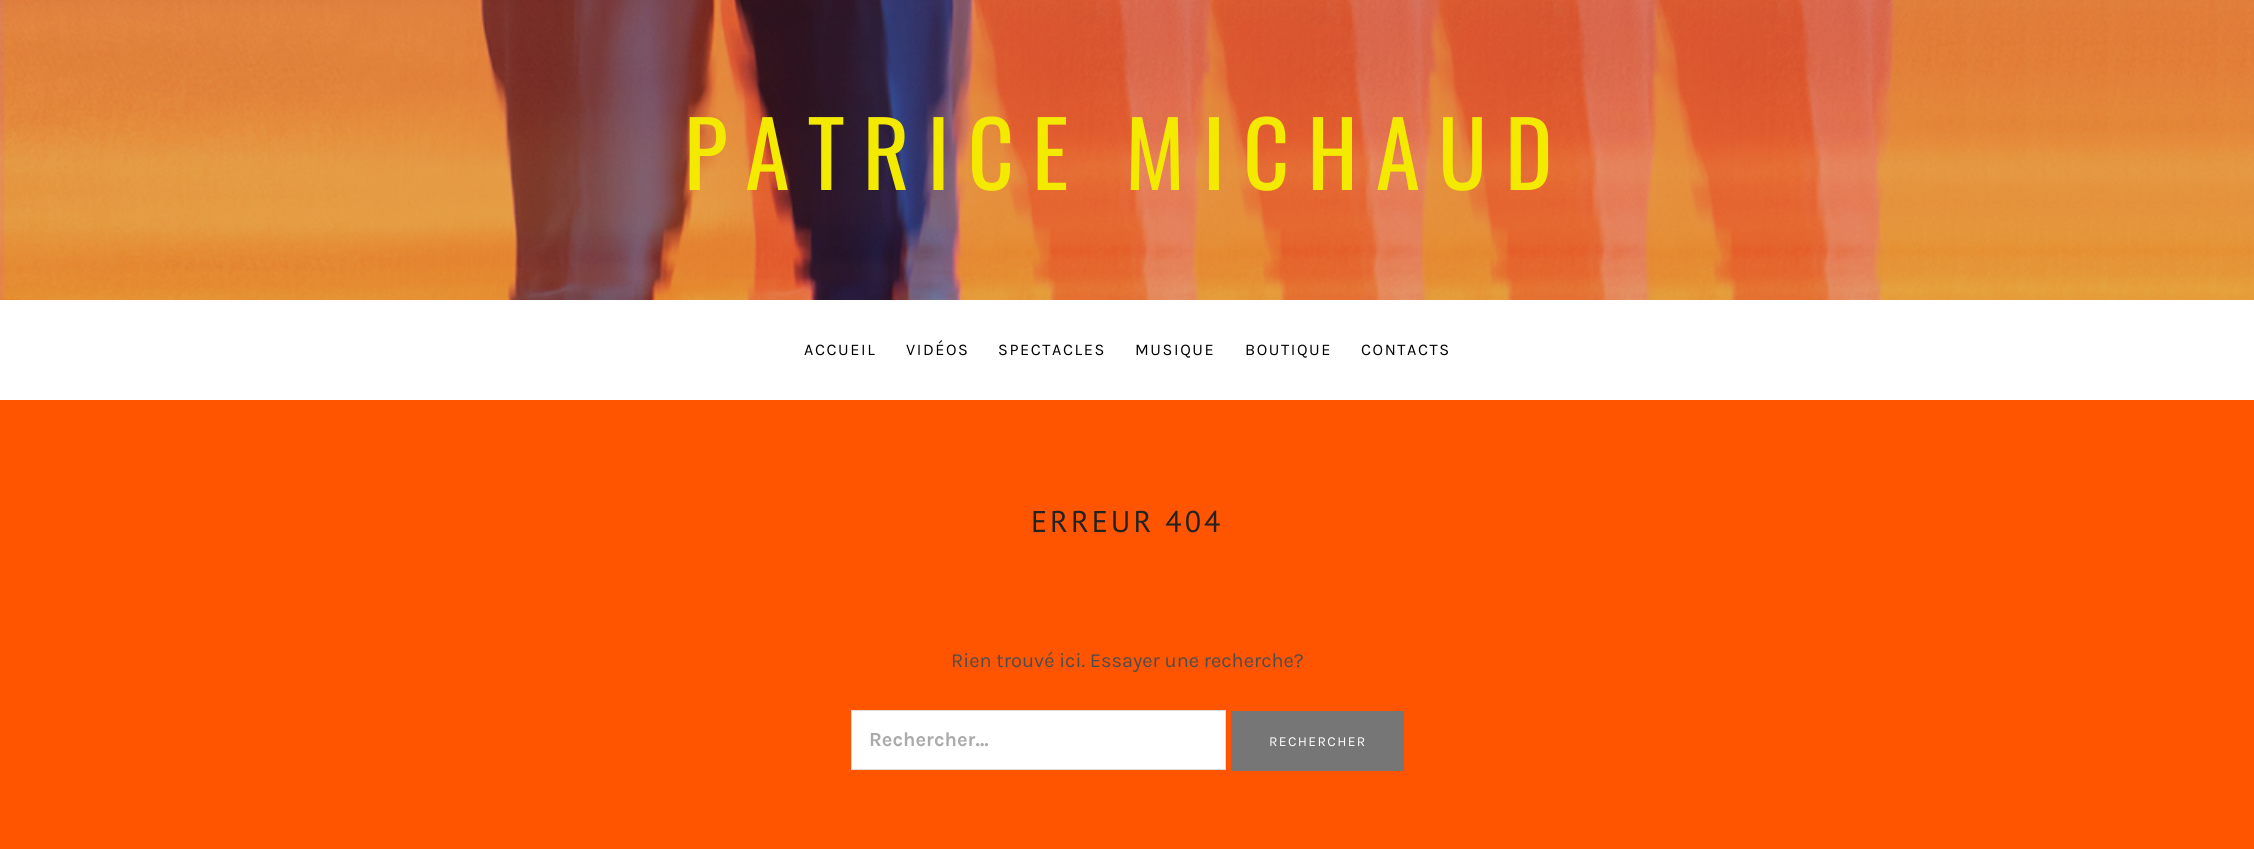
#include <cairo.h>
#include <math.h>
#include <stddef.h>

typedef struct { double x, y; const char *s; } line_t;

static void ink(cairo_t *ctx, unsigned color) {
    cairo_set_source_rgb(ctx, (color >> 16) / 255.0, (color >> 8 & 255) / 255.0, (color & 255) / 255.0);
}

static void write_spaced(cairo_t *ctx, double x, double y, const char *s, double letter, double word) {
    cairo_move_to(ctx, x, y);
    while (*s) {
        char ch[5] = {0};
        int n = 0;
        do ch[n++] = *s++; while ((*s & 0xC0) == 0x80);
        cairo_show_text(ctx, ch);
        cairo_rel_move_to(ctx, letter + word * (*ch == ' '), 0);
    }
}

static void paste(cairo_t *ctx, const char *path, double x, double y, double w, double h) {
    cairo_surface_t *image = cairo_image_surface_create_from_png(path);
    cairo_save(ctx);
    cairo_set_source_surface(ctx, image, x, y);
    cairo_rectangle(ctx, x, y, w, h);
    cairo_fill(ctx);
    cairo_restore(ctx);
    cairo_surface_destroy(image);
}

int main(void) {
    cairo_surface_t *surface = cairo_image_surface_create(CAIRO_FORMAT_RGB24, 2254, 849);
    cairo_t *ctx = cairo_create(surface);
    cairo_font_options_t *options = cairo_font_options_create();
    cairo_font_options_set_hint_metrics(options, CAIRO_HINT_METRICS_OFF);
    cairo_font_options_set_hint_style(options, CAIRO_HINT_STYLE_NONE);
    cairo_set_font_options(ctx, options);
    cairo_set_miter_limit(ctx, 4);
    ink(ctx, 0xFF5400);
    cairo_paint(ctx);
    paste(ctx, "media/1.png", 0, 0, 2254, 300);
    cairo_select_font_face(ctx, "Oswald", CAIRO_FONT_SLANT_NORMAL, CAIRO_FONT_WEIGHT_NORMAL);
    cairo_set_font_size(ctx, 90);
    ink(ctx, 0xF3EA00);
    write_spaced(ctx, 684, 190, "PATRICE MICHAUD", 18, 0);
    ink(ctx, 0xFFFFFF);
    cairo_rectangle(ctx, 0, 300, 2254, 100);
    cairo_fill(ctx);
    cairo_select_font_face(ctx, "Karla", CAIRO_FONT_SLANT_NORMAL, CAIRO_FONT_WEIGHT_NORMAL);
    cairo_set_font_size(ctx, 16.25);
    ink(ctx, 0x000000);
    {
        static const line_t items[] = {
            {804, 355, "ACCUEIL"},
            {906, 355, "VIDÉOS"},
            {998, 355, "SPECTACLES"},
            {1135, 355, "MUSIQUE"},
            {1245, 355, "BOUTIQUE"},
            {1361, 355, "CONTACTS"},
        };
        for (size_t i = 0; i < sizeof items / sizeof *items; i++) {
            write_spaced(ctx, items[i].x, items[i].y, items[i].s, 1.6, 0);
        }
    }
    cairo_select_font_face(ctx, "PT Sans", CAIRO_FONT_SLANT_NORMAL, CAIRO_FONT_WEIGHT_NORMAL);
    cairo_set_font_size(ctx, 30);
    ink(ctx, 0x222222);
    write_spaced(ctx, 1031, 532, "ERREUR 404", 3, 0);
    cairo_select_font_face(ctx, "Karla", CAIRO_FONT_SLANT_NORMAL, CAIRO_FONT_WEIGHT_NORMAL);
    cairo_set_font_size(ctx, 20);
    ink(ctx, 0x4D4D4D);
    cairo_move_to(ctx, 951, 667);
    cairo_show_text(ctx, "Rien trouvé ici. Essayer une recherche?");
    ink(ctx, 0xFFFFFF);
    cairo_rectangle(ctx, 851.5, 710.5, 374, 59);
    cairo_fill_preserve(ctx);
    ink(ctx, 0xDDDDDD);
    cairo_set_line_width(ctx, 1);
    cairo_stroke(ctx);
    cairo_select_font_face(ctx, "Karla", CAIRO_FONT_SLANT_NORMAL, CAIRO_FONT_WEIGHT_BOLD);
    ink(ctx, 0xABABAB);
    cairo_move_to(ctx, 869, 746);
    cairo_show_text(ctx, "Rechercher…");
    ink(ctx, 0x767676);
    cairo_rectangle(ctx, 1231, 711, 173, 60);
    cairo_fill(ctx);
    cairo_select_font_face(ctx, "Karla", CAIRO_FONT_SLANT_NORMAL, CAIRO_FONT_WEIGHT_NORMAL);
    cairo_set_font_size(ctx, 13.75);
    ink(ctx, 0xFFFFFF);
    write_spaced(ctx, 1269, 746, "RECHERCHER", 1.4, 0);
    cairo_surface_write_to_png(surface, "image.png");
    cairo_font_options_destroy(options);
    cairo_destroy(ctx);
    cairo_surface_destroy(surface);
    return 0;
}
